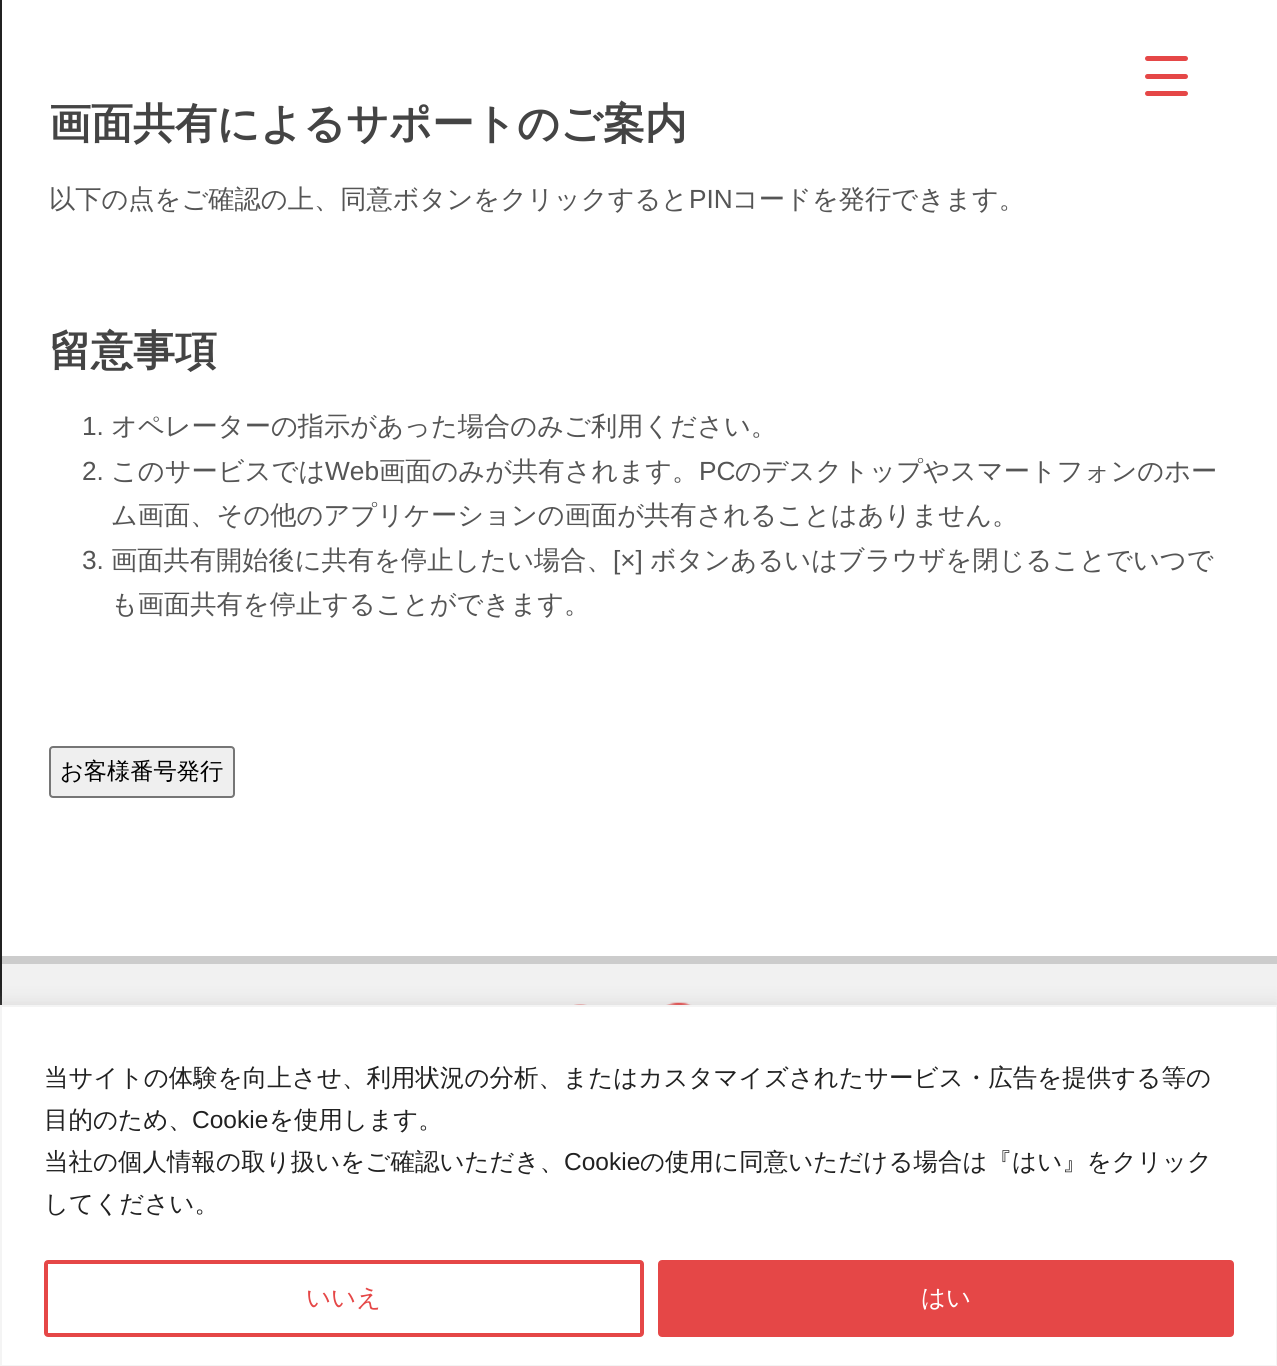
#include <cairo.h>
#include <math.h>
#include <stddef.h>


static void ink(cairo_t *ctx, unsigned color) {
    cairo_set_source_rgb(ctx, (color >> 16) / 255.0, (color >> 8 & 255) / 255.0, (color & 255) / 255.0);
}

static void round_path(cairo_t *ctx, double x, double y, double w, double h, double r) {
    cairo_new_sub_path(ctx);
    cairo_arc(ctx, x + w - r, y + h - r, r, 0, M_PI / 2);
    cairo_arc(ctx, x + r, y + h - r, r, M_PI / 2, M_PI);
    cairo_arc(ctx, x + r, y + r, r, M_PI, 1.5 * M_PI);
    cairo_arc(ctx, x + w - r, y + r, r, 1.5 * M_PI, 2 * M_PI);
    cairo_close_path(ctx);
}

static void blur_box(cairo_t *ctx, double x, double y, double w, double h, double r, double blur, double alpha) {
    cairo_push_group_with_content(ctx, CAIRO_CONTENT_ALPHA);
    cairo_set_operator(ctx, CAIRO_OPERATOR_SOURCE);
    for (int i = 15; i >= -15 && fmin(w, h) + blur * i / 3 > 0; i -= 2) {
        double e = blur * i / 6;
        cairo_set_source_rgba(ctx, 0, 0, 0, alpha * erfc((i - 1) / 8.5) / 2);
        round_path(ctx, x - e, y - e, w + 2 * e, h + 2 * e, fmax(0, fmin(r + e + blur * .6, fmin(w, h) / 2 + e)));
        cairo_fill(ctx);
    }
    cairo_pattern_t *soft = cairo_pop_group(ctx);
    cairo_mask(ctx, soft);
    cairo_pattern_destroy(soft);
}

static void paste(cairo_t *ctx, const char *path, double x, double y, double w, double h) {
    cairo_surface_t *image = cairo_image_surface_create_from_png(path);
    cairo_save(ctx);
    cairo_set_source_surface(ctx, image, x, y);
    cairo_rectangle(ctx, x, y, w, h);
    cairo_fill(ctx);
    cairo_restore(ctx);
    cairo_surface_destroy(image);
}

int main(void) {
    cairo_surface_t *surface = cairo_image_surface_create(CAIRO_FORMAT_RGB24, 1277, 1366);
    cairo_t *ctx = cairo_create(surface);
    cairo_font_options_t *options = cairo_font_options_create();
    cairo_font_options_set_hint_metrics(options, CAIRO_HINT_METRICS_OFF);
    cairo_font_options_set_hint_style(options, CAIRO_HINT_STYLE_NONE);
    cairo_set_font_options(ctx, options);
    cairo_set_miter_limit(ctx, 4);
    ink(ctx, 0xFFFFFF);
    cairo_paint(ctx);
    ink(ctx, 0xCCCCCC);
    cairo_rectangle(ctx, 0, 956, 1277, 8);
    cairo_fill(ctx);
    ink(ctx, 0x212121);
    cairo_rectangle(ctx, 0, 0, 2, 1005);
    cairo_fill(ctx);
    ink(ctx, 0xE54747);
    round_path(ctx, 1145, 74, 43, 5, 2.5);
    cairo_fill(ctx);
    round_path(ctx, 1145, 56, 43, 5, 2.5);
    cairo_fill(ctx);
    round_path(ctx, 1145, 91, 43, 5, 2.5);
    cairo_fill(ctx);
    cairo_select_font_face(ctx, "WenQuanYi Zen Hei", CAIRO_FONT_SLANT_NORMAL, CAIRO_FONT_WEIGHT_BOLD);
    cairo_set_font_size(ctx, 42);
    ink(ctx, 0x444444);
    cairo_move_to(ctx, 49, 138);
    cairo_show_text(ctx, "画面共有によるサポートのご案内");
    cairo_select_font_face(ctx, "WenQuanYi Zen Hei Medium", CAIRO_FONT_SLANT_NORMAL, CAIRO_FONT_WEIGHT_NORMAL);
    cairo_set_font_size(ctx, 26.25);
    ink(ctx, 0x555555);
    cairo_move_to(ctx, 49, 208);
    cairo_show_text(ctx, "以下の点をご確認の上、同意ボタンをクリックすると");
    cairo_select_font_face(ctx, "Liberation Sans", CAIRO_FONT_SLANT_NORMAL, CAIRO_FONT_WEIGHT_NORMAL);
    cairo_move_to(ctx, 689, 208);
    cairo_show_text(ctx, "PIN");
    cairo_select_font_face(ctx, "WenQuanYi Zen Hei Medium", CAIRO_FONT_SLANT_NORMAL, CAIRO_FONT_WEIGHT_NORMAL);
    cairo_move_to(ctx, 732, 208);
    cairo_show_text(ctx, "コードを発行できます。");
    cairo_select_font_face(ctx, "WenQuanYi Zen Hei", CAIRO_FONT_SLANT_NORMAL, CAIRO_FONT_WEIGHT_BOLD);
    cairo_set_font_size(ctx, 42);
    ink(ctx, 0x444444);
    cairo_move_to(ctx, 49, 365);
    cairo_show_text(ctx, "留意事項");
    cairo_select_font_face(ctx, "Liberation Sans", CAIRO_FONT_SLANT_NORMAL, CAIRO_FONT_WEIGHT_NORMAL);
    cairo_set_font_size(ctx, 26.25);
    ink(ctx, 0x555555);
    cairo_move_to(ctx, 82, 435);
    cairo_show_text(ctx, "1.");
    cairo_select_font_face(ctx, "WenQuanYi Zen Hei Medium", CAIRO_FONT_SLANT_NORMAL, CAIRO_FONT_WEIGHT_NORMAL);
    cairo_move_to(ctx, 111, 435);
    cairo_show_text(ctx, "オペレーターの指示があった場合のみご利用ください。");
    cairo_select_font_face(ctx, "Liberation Sans", CAIRO_FONT_SLANT_NORMAL, CAIRO_FONT_WEIGHT_NORMAL);
    cairo_move_to(ctx, 82, 480);
    cairo_show_text(ctx, "2.");
    cairo_select_font_face(ctx, "WenQuanYi Zen Hei Medium", CAIRO_FONT_SLANT_NORMAL, CAIRO_FONT_WEIGHT_NORMAL);
    cairo_move_to(ctx, 111, 480);
    cairo_show_text(ctx, "このサービスでは");
    cairo_select_font_face(ctx, "Liberation Sans", CAIRO_FONT_SLANT_NORMAL, CAIRO_FONT_WEIGHT_NORMAL);
    cairo_move_to(ctx, 325, 480);
    cairo_show_text(ctx, "Web");
    cairo_select_font_face(ctx, "WenQuanYi Zen Hei Medium", CAIRO_FONT_SLANT_NORMAL, CAIRO_FONT_WEIGHT_NORMAL);
    cairo_move_to(ctx, 379, 480);
    cairo_show_text(ctx, "画面のみが共有されます。");
    cairo_select_font_face(ctx, "Liberation Sans", CAIRO_FONT_SLANT_NORMAL, CAIRO_FONT_WEIGHT_NORMAL);
    cairo_move_to(ctx, 699, 480);
    cairo_show_text(ctx, "PC");
    cairo_select_font_face(ctx, "WenQuanYi Zen Hei Medium", CAIRO_FONT_SLANT_NORMAL, CAIRO_FONT_WEIGHT_NORMAL);
    cairo_move_to(ctx, 735, 480);
    cairo_show_text(ctx, "のデスクトップやスマートフォンのホー");
    cairo_move_to(ctx, 111, 524);
    cairo_show_text(ctx, "ム画面、その他のアプリケーションの画面が共有されることはありません。");
    cairo_select_font_face(ctx, "Liberation Sans", CAIRO_FONT_SLANT_NORMAL, CAIRO_FONT_WEIGHT_NORMAL);
    cairo_move_to(ctx, 82, 569);
    cairo_show_text(ctx, "3.");
    cairo_select_font_face(ctx, "WenQuanYi Zen Hei Medium", CAIRO_FONT_SLANT_NORMAL, CAIRO_FONT_WEIGHT_NORMAL);
    cairo_move_to(ctx, 111, 569);
    cairo_show_text(ctx, "画面共有開始後に共有を停止したい場合、");
    cairo_select_font_face(ctx, "Liberation Sans", CAIRO_FONT_SLANT_NORMAL, CAIRO_FONT_WEIGHT_NORMAL);
    cairo_move_to(ctx, 613, 569);
    cairo_show_text(ctx, "[×]");
    cairo_select_font_face(ctx, "WenQuanYi Zen Hei Medium", CAIRO_FONT_SLANT_NORMAL, CAIRO_FONT_WEIGHT_NORMAL);
    cairo_move_to(ctx, 650, 569);
    cairo_show_text(ctx, "ボタンあるいはブラウザを閉じることでいつで");
    cairo_move_to(ctx, 111, 613);
    cairo_show_text(ctx, "も画面共有を停止することができます。");
    ink(ctx, 0xEFEFEF);
    round_path(ctx, 50, 747, 184, 50, 3);
    cairo_fill_preserve(ctx);
    ink(ctx, 0x767676);
    cairo_stroke(ctx);
    cairo_set_font_size(ctx, 23.25);
    ink(ctx, 0x000000);
    cairo_move_to(ctx, 60, 779);
    cairo_show_text(ctx, "お客様番号発行");
    ink(ctx, 0xF1F1F1);
    cairo_rectangle(ctx, 2, 964, 1275, 41);
    cairo_fill(ctx);
    paste(ctx, "media/1.png", 574, 1002, 118, 3);
    ink(ctx, 0xACABAB);
    blur_box(ctx, 0, 1003, 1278, 362, 0, 9, 0.3);
    ink(ctx, 0xFFFFFF);
    cairo_rectangle(ctx, 1, 1006, 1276, 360);
    cairo_fill_preserve(ctx);
    ink(ctx, 0xF4F4F4);
    cairo_stroke(ctx);
    cairo_set_font_size(ctx, 24.5);
    ink(ctx, 0x212121);
    cairo_move_to(ctx, 44, 1086);
    cairo_show_text(ctx, "当サイトの体験を向上させ、利用状況の分析、またはカスタマイズされたサービス・広告を提供する等の");
    cairo_move_to(ctx, 44, 1128);
    cairo_show_text(ctx, "目的のため、");
    cairo_select_font_face(ctx, "Liberation Sans", CAIRO_FONT_SLANT_NORMAL, CAIRO_FONT_WEIGHT_NORMAL);
    cairo_move_to(ctx, 192, 1128);
    cairo_show_text(ctx, "Cookie");
    cairo_select_font_face(ctx, "WenQuanYi Zen Hei Medium", CAIRO_FONT_SLANT_NORMAL, CAIRO_FONT_WEIGHT_NORMAL);
    cairo_move_to(ctx, 269, 1128);
    cairo_show_text(ctx, "を使用します。");
    cairo_move_to(ctx, 44, 1170);
    cairo_show_text(ctx, "当社の個人情報の取り扱いをご確認いただき、");
    cairo_select_font_face(ctx, "Liberation Sans", CAIRO_FONT_SLANT_NORMAL, CAIRO_FONT_WEIGHT_NORMAL);
    cairo_move_to(ctx, 564, 1170);
    cairo_show_text(ctx, "Cookie");
    cairo_select_font_face(ctx, "WenQuanYi Zen Hei Medium", CAIRO_FONT_SLANT_NORMAL, CAIRO_FONT_WEIGHT_NORMAL);
    cairo_move_to(ctx, 640, 1170);
    cairo_show_text(ctx, "の使用に同意いただける場合は『はい』をクリック");
    cairo_move_to(ctx, 44, 1212);
    cairo_show_text(ctx, "してください。");
    round_path(ctx, 46, 1262, 596, 73, 2);
    ink(ctx, 0xE54747);
    cairo_set_line_width(ctx, 4);
    cairo_stroke(ctx);
    cairo_move_to(ctx, 306, 1306);
    cairo_show_text(ctx, "いいえ");
    round_path(ctx, 660, 1262, 572, 73, 2);
    cairo_fill_preserve(ctx);
    cairo_stroke(ctx);
    ink(ctx, 0xFFFFFF);
    cairo_move_to(ctx, 921, 1306);
    cairo_show_text(ctx, "はい");
    cairo_surface_write_to_png(surface, "image.png");
    cairo_font_options_destroy(options);
    cairo_destroy(ctx);
    cairo_surface_destroy(surface);
    return 0;
}
